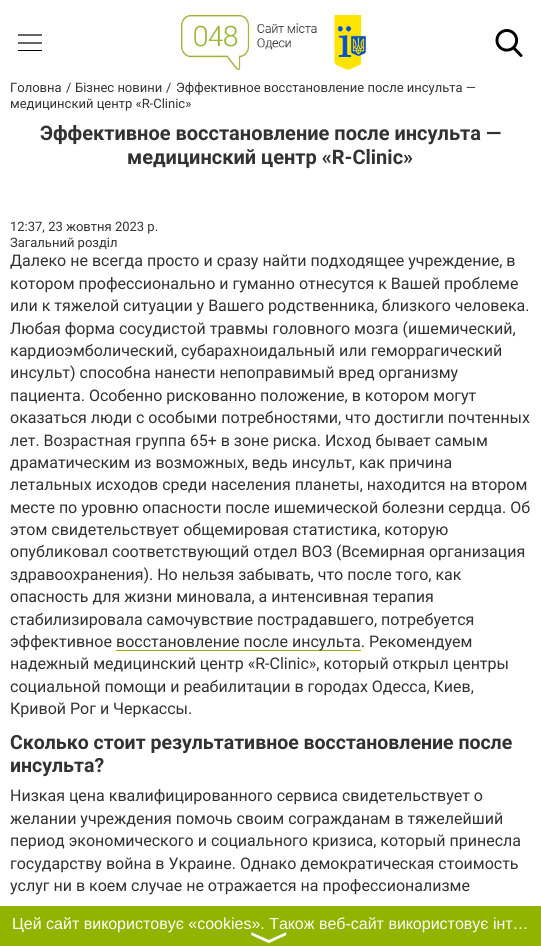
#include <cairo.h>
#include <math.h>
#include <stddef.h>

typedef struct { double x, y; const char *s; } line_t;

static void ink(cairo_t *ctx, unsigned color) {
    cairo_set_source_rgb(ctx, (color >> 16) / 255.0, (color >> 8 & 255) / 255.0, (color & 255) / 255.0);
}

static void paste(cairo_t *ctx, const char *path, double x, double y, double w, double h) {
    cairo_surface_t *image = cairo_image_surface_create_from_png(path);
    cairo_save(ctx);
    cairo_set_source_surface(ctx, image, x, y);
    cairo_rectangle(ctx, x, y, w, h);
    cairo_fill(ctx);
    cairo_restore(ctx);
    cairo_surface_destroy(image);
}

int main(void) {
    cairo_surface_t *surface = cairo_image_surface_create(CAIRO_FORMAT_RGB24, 541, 946);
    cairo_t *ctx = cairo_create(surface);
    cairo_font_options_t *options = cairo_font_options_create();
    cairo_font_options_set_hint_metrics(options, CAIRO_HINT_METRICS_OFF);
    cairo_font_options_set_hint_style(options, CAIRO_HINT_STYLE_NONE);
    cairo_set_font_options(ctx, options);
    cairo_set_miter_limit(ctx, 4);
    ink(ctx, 0xFFFFFF);
    cairo_paint(ctx);
    cairo_new_path(ctx);
    cairo_move_to(ctx, 18, 43);
    cairo_line_to(ctx, 42, 43);
    cairo_move_to(ctx, 18, 35);
    cairo_line_to(ctx, 42, 35);
    ink(ctx, 0x000000);
    cairo_set_line_width(ctx, 1.2);
    cairo_stroke(ctx);
    cairo_rectangle(ctx, 18, 50, 24, 1);
    cairo_fill(ctx);
    paste(ctx, "media/1.png", 181, 15, 185, 55);
    paste(ctx, "media/2.png", 495, 29, 28, 28);
    cairo_select_font_face(ctx, "Roboto", CAIRO_FONT_SLANT_NORMAL, CAIRO_FONT_WEIGHT_NORMAL);
    cairo_set_font_size(ctx, 13);
    ink(ctx, 0x323232);
    {
        static const line_t items[] = {
            {10, 92, "Головна"},
            {66, 92, "/"},
            {75, 92, "Бізнес новини"},
            {166, 92, "/"},
            {176, 92, "Эффективное восстановление после инсульта —"},
            {10, 108, "медицинский центр «R-Clinic»"},
        };
        for (size_t i = 0; i < sizeof items / sizeof *items; i++) {
            cairo_move_to(ctx, items[i].x, items[i].y);
            cairo_show_text(ctx, items[i].s);
        }
    }
    cairo_select_font_face(ctx, "Roboto", CAIRO_FONT_SLANT_NORMAL, CAIRO_FONT_WEIGHT_BOLD);
    cairo_set_font_size(ctx, 20);
    cairo_move_to(ctx, 40, 140);
    cairo_show_text(ctx, "Эффективное восстановление после инсульта —");
    cairo_move_to(ctx, 127, 164);
    cairo_show_text(ctx, "медицинский центр «R-Clinic»");
    cairo_select_font_face(ctx, "Roboto", CAIRO_FONT_SLANT_NORMAL, CAIRO_FONT_WEIGHT_NORMAL);
    cairo_set_font_size(ctx, 13);
    cairo_move_to(ctx, 10, 231);
    cairo_show_text(ctx, "12:37, 23 жовтня 2023 р.");
    cairo_move_to(ctx, 10, 247);
    cairo_show_text(ctx, "Загальний розділ");
    cairo_set_font_size(ctx, 16);
    {
        static const line_t items[] = {
            {10, 266, "Далеко не всегда просто и сразу найти подходящее учреждение, в"},
            {10, 289, "котором профессионально и гуманно отнесутся к Вашей проблеме"},
            {10, 311, "или к тяжелой ситуации у Вашего родственника, близкого человека."},
            {10, 334, "Любая форма сосудистой травмы головного мозга (ишемический,"},
            {10, 356, "кардиоэмболический, субарахноидальный или геморрагический"},
            {10, 378, "инсульт) способна нанести непоправимый вред организму"},
            {10, 401, "пациента. Особенно рискованно положение, в котором могут"},
            {10, 423, "оказаться люди с особыми потребностями, что достигли почтенных"},
            {10, 446, "лет. Возрастная группа 65+ в зоне риска. Исход бывает самым"},
            {10, 468, "драматическим из возможных, ведь инсульт, как причина"},
            {10, 490, "летальных исходов среди населения планеты, находится на втором"},
            {10, 513, "месте по уровню опасности после ишемической болезни сердца. Об"},
            {10, 535, "этом свидетельствует общемировая статистика, которую"},
            {10, 557, "опубликовал соответствующий отдел ВОЗ (Всемирная организация"},
            {10, 580, "здравоохранения). Но нельзя забывать, что после того, как"},
            {10, 602, "опасность для жизни миновала, а интенсивная терапия"},
            {10, 625, "стабилизировала самочувствие пострадавшего, потребуется"},
            {10, 647, "эффективное"},
        };
        for (size_t i = 0; i < sizeof items / sizeof *items; i++) {
            cairo_move_to(ctx, items[i].x, items[i].y);
            cairo_show_text(ctx, items[i].s);
        }
    }
    ink(ctx, 0x90B400);
    cairo_rectangle(ctx, 116, 650, 245, 1);
    cairo_fill(ctx);
    ink(ctx, 0x323232);
    {
        static const line_t items[] = {
            {116, 647, "восстановление после инсульта. Рекомендуем"},
            {10, 669, "надежный медицинский центр «R-Clinic», который открыл центры"},
            {10, 692, "социальной помощи и реабилитации в городах Одесса, Киев,"},
            {10, 714, "Кривой Рог и Черкассы."},
        };
        for (size_t i = 0; i < sizeof items / sizeof *items; i++) {
            cairo_move_to(ctx, items[i].x, items[i].y);
            cairo_show_text(ctx, items[i].s);
        }
    }
    cairo_select_font_face(ctx, "Roboto", CAIRO_FONT_SLANT_NORMAL, CAIRO_FONT_WEIGHT_BOLD);
    cairo_set_font_size(ctx, 19.5);
    cairo_move_to(ctx, 10, 749);
    cairo_show_text(ctx, "Сколько стоит результативное восстановление после");
    cairo_move_to(ctx, 10, 772);
    cairo_show_text(ctx, "инсульта?");
    cairo_select_font_face(ctx, "Roboto", CAIRO_FONT_SLANT_NORMAL, CAIRO_FONT_WEIGHT_NORMAL);
    cairo_set_font_size(ctx, 16);
    {
        static const line_t items[] = {
            {10, 801, "Низкая цена квалифицированного сервиса свидетельствует о"},
            {10, 824, "желании учреждения помочь своим согражданам в тяжелейший"},
            {10, 846, "период экономического и социального кризиса, который принесла"},
            {10, 869, "государству война в Украине. Однако демократическая стоимость"},
            {10, 891, "услуг ни в коем случае не отражается на профессионализме"},
        };
        for (size_t i = 0; i < sizeof items / sizeof *items; i++) {
            cairo_move_to(ctx, items[i].x, items[i].y);
            cairo_show_text(ctx, items[i].s);
        }
    }
    ink(ctx, 0x90B400);
    cairo_rectangle(ctx, 0, 906, 541, 40);
    cairo_fill(ctx);
    cairo_select_font_face(ctx, "Liberation Sans", CAIRO_FONT_SLANT_NORMAL, CAIRO_FONT_WEIGHT_NORMAL);
    ink(ctx, 0xFFFFFF);
    cairo_move_to(ctx, 12, 929);
    cairo_show_text(ctx, "Цей сайт використовує «cookies». Також веб-сайт використовує інт…");
    cairo_select_font_face(ctx, "FreeSans", CAIRO_FONT_SLANT_NORMAL, CAIRO_FONT_WEIGHT_NORMAL);
    cairo_set_font_size(ctx, 40);
    cairo_save(ctx);
    cairo_translate(ctx, 257, 931);
    cairo_rotate(ctx, 90 * M_PI / 180);
    cairo_move_to(ctx, 0, 0);
    cairo_show_text(ctx, "〉");
    cairo_restore(ctx);
    cairo_surface_write_to_png(surface, "image.png");
    cairo_font_options_destroy(options);
    cairo_destroy(ctx);
    cairo_surface_destroy(surface);
    return 0;
}
